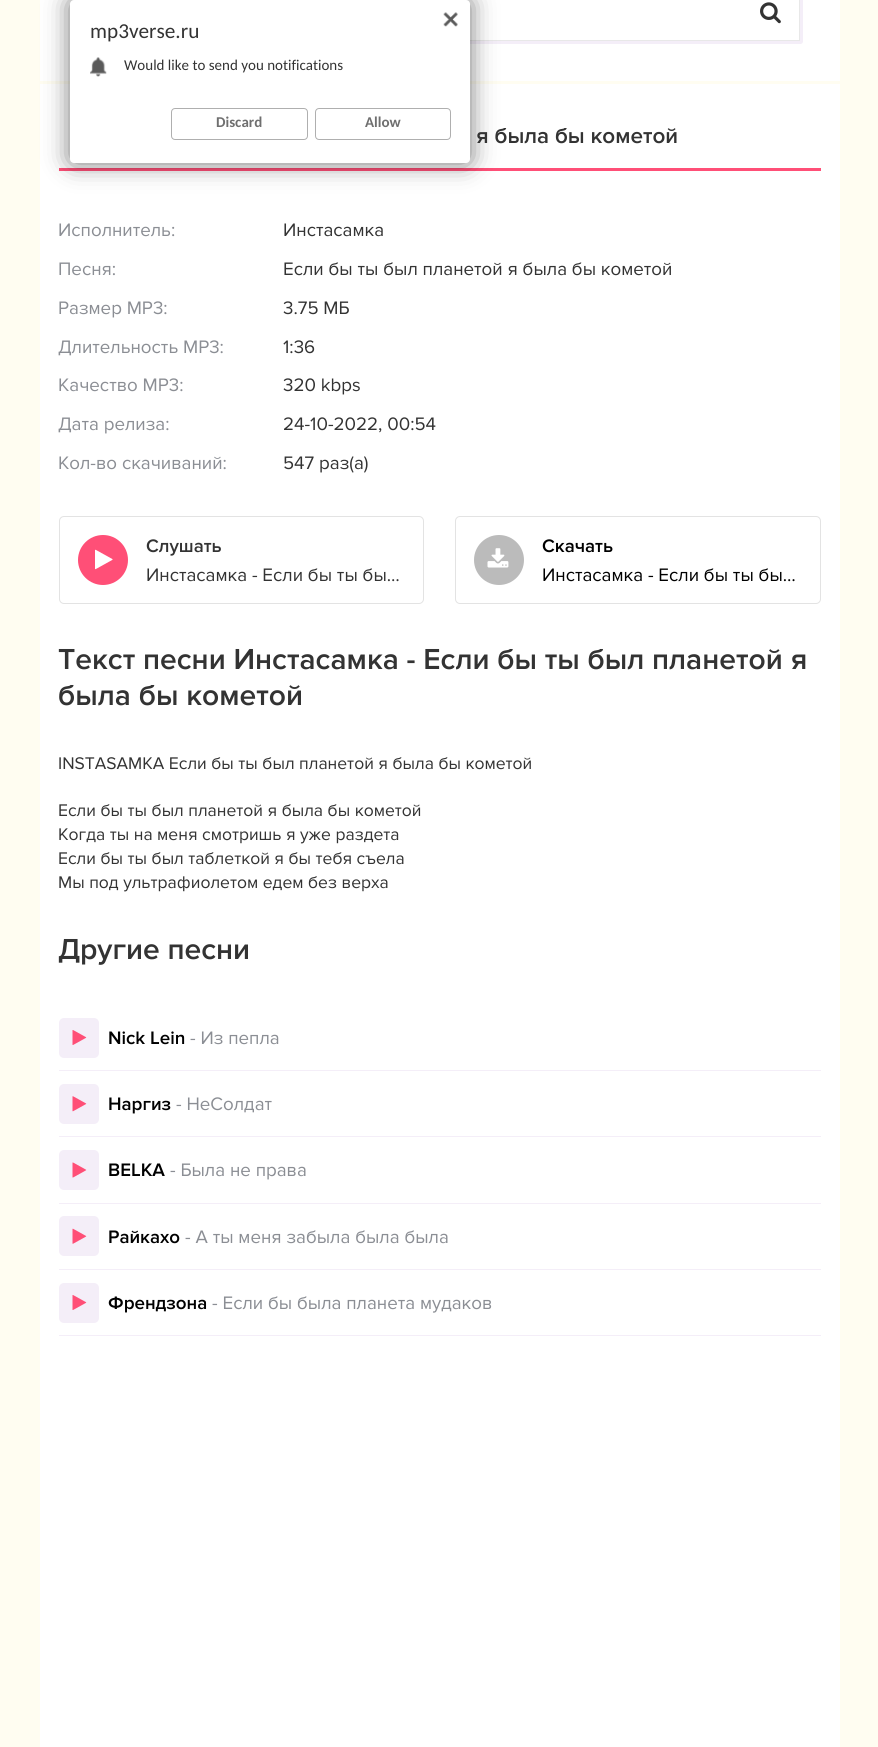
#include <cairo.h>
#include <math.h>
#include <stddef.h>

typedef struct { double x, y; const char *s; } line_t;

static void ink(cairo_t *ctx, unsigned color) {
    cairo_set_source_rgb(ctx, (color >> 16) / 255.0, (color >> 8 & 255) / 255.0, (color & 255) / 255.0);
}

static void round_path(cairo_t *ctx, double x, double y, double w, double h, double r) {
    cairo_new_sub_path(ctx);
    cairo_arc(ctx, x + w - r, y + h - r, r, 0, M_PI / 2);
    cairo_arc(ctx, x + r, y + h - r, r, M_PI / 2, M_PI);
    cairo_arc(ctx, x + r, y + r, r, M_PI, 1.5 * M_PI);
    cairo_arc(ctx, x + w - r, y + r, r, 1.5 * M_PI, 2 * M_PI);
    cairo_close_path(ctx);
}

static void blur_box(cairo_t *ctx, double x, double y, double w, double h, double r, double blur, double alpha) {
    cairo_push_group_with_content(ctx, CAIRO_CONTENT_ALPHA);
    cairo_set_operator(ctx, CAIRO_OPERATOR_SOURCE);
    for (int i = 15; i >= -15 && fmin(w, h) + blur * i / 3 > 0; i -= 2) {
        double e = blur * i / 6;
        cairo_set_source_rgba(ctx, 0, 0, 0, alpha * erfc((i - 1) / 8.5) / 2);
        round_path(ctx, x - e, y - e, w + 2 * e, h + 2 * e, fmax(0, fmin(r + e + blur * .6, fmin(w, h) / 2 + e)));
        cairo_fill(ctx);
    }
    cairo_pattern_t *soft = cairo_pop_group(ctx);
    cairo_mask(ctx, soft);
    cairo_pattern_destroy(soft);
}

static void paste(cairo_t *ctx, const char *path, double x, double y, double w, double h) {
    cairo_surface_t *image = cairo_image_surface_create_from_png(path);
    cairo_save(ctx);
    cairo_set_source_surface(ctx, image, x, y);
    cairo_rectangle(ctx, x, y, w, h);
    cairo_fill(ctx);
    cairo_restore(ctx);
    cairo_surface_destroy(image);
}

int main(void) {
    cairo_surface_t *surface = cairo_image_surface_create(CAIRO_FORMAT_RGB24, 878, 1747);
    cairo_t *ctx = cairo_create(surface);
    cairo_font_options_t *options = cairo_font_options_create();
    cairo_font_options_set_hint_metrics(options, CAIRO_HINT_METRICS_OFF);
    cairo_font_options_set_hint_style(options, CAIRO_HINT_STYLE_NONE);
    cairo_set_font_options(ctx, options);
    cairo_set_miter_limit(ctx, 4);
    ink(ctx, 0xFFFDF1);
    cairo_paint(ctx);
    ink(ctx, 0xFFFFFF);
    cairo_rectangle(ctx, 40, 0, 800, 81);
    cairo_fill(ctx);
    cairo_rectangle(ctx, 80.5, -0.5, 719, 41);
    ink(ctx, 0xE8E8E8);
    cairo_set_line_width(ctx, 1);
    cairo_stroke(ctx);
    round_path(ctx, 79.5, -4.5, 722, 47, 1);
    ink(ctx, 0xF4EEF8);
    cairo_set_line_width(ctx, 3);
    cairo_stroke(ctx);
    ink(ctx, 0xFFFFFF);
    cairo_rectangle(ctx, 40, 84, 800, 1663);
    cairo_fill(ctx);
    ink(ctx, 0xFF4F77);
    cairo_rectangle(ctx, 59, 168, 762, 3);
    cairo_fill(ctx);
    ink(ctx, 0x000000);
    blur_box(ctx, 70, 0, 400, 163, 4, 12.5, 0.54);
    ink(ctx, 0xFFFFFF);
    round_path(ctx, 70, 0, 400, 163, 4);
    cairo_fill(ctx);
    paste(ctx, "media/1.png", 443, 12, 15, 15);
    cairo_select_font_face(ctx, "Carlito", CAIRO_FONT_SLANT_NORMAL, CAIRO_FONT_WEIGHT_NORMAL);
    cairo_set_font_size(ctx, 21.25);
    ink(ctx, 0x333333);
    cairo_move_to(ctx, 90, 38);
    cairo_show_text(ctx, "mp3verse.ru");
    paste(ctx, "media/2.png", 90, 57, 17, 20);
    cairo_set_font_size(ctx, 15);
    cairo_move_to(ctx, 124, 70);
    cairo_show_text(ctx, "Would like to send you notifications");
    round_path(ctx, 171.5, 108.5, 136, 31, 3.5);
    ink(ctx, 0xAFAFAF);
    cairo_set_line_width(ctx, 1);
    cairo_stroke(ctx);
    cairo_select_font_face(ctx, "Carlito", CAIRO_FONT_SLANT_NORMAL, CAIRO_FONT_WEIGHT_BOLD);
    ink(ctx, 0x6F6F6F);
    cairo_move_to(ctx, 216, 127);
    cairo_show_text(ctx, "Discard");
    round_path(ctx, 315.5, 108.5, 135, 31, 3.5);
    ink(ctx, 0xAFAFAF);
    cairo_stroke(ctx);
    ink(ctx, 0x6F6F6F);
    cairo_move_to(ctx, 365, 127);
    cairo_show_text(ctx, "Allow");
    paste(ctx, "media/3.png", 760, 2, 21, 22);
    cairo_select_font_face(ctx, "Proxima Nova SemiBold", CAIRO_FONT_SLANT_NORMAL, CAIRO_FONT_WEIGHT_NORMAL);
    cairo_set_font_size(ctx, 22.5);
    ink(ctx, 0x333333);
    cairo_move_to(ctx, 476, 143);
    cairo_show_text(ctx, "я была бы кометой");
    cairo_select_font_face(ctx, "Proxima Nova", CAIRO_FONT_SLANT_NORMAL, CAIRO_FONT_WEIGHT_NORMAL);
    cairo_set_font_size(ctx, 18.75);
    ink(ctx, 0x8B8E94);
    cairo_move_to(ctx, 58, 236);
    cairo_show_text(ctx, "Исполнитель:");
    ink(ctx, 0x333333);
    cairo_move_to(ctx, 283, 236);
    cairo_show_text(ctx, "Инстасамка");
    ink(ctx, 0x8B8E94);
    cairo_move_to(ctx, 58, 275);
    cairo_show_text(ctx, "Песня:");
    ink(ctx, 0x333333);
    cairo_move_to(ctx, 283, 275);
    cairo_show_text(ctx, "Если бы ты был планетой я была бы кометой");
    ink(ctx, 0x8B8E94);
    cairo_move_to(ctx, 58, 314);
    cairo_show_text(ctx, "Размер MP3:");
    ink(ctx, 0x333333);
    cairo_move_to(ctx, 283, 314);
    cairo_show_text(ctx, "3.75 МБ");
    ink(ctx, 0x8B8E94);
    cairo_move_to(ctx, 58, 353);
    cairo_show_text(ctx, "Длительность MP3:");
    ink(ctx, 0x333333);
    cairo_move_to(ctx, 283, 353);
    cairo_show_text(ctx, "1:36");
    ink(ctx, 0x8B8E94);
    cairo_move_to(ctx, 58, 391);
    cairo_show_text(ctx, "Качество MP3:");
    ink(ctx, 0x333333);
    cairo_move_to(ctx, 283, 391);
    cairo_show_text(ctx, "320 kbps");
    ink(ctx, 0x8B8E94);
    cairo_move_to(ctx, 58, 430);
    cairo_show_text(ctx, "Дата релиза:");
    ink(ctx, 0x333333);
    cairo_move_to(ctx, 283, 430);
    cairo_show_text(ctx, "24-10-2022, 00:54");
    ink(ctx, 0x8B8E94);
    cairo_move_to(ctx, 58, 469);
    cairo_show_text(ctx, "Кол-во скачиваний:");
    ink(ctx, 0x333333);
    cairo_move_to(ctx, 283, 469);
    cairo_show_text(ctx, "547 раз(а)");
    round_path(ctx, 59.5, 516.5, 364, 87, 4.5);
    ink(ctx, 0xE3E3E3);
    cairo_stroke(ctx);
    ink(ctx, 0xFF4F77);
    cairo_arc(ctx, 103, 560, 25, 0, 2 * M_PI);
    cairo_fill(ctx);
    paste(ctx, "media/4.png", 95, 549, 18, 21);
    cairo_select_font_face(ctx, "Proxima Nova SemiBold", CAIRO_FONT_SLANT_NORMAL, CAIRO_FONT_WEIGHT_NORMAL);
    ink(ctx, 0x333333);
    cairo_move_to(ctx, 146, 552);
    cairo_show_text(ctx, "Слушать");
    cairo_select_font_face(ctx, "Proxima Nova", CAIRO_FONT_SLANT_NORMAL, CAIRO_FONT_WEIGHT_NORMAL);
    cairo_move_to(ctx, 146, 581);
    cairo_show_text(ctx, "Инстасамка - Если бы ты бы…");
    round_path(ctx, 455.5, 516.5, 365, 87, 4.5);
    ink(ctx, 0xE3E3E3);
    cairo_stroke(ctx);
    ink(ctx, 0xBBBBBB);
    cairo_arc(ctx, 499, 560, 25, 0, 2 * M_PI);
    cairo_fill(ctx);
    paste(ctx, "media/5.png", 487, 548, 22, 20);
    cairo_select_font_face(ctx, "Proxima Nova SemiBold", CAIRO_FONT_SLANT_NORMAL, CAIRO_FONT_WEIGHT_NORMAL);
    ink(ctx, 0x000000);
    cairo_move_to(ctx, 542, 552);
    cairo_show_text(ctx, "Скачать");
    cairo_select_font_face(ctx, "Proxima Nova", CAIRO_FONT_SLANT_NORMAL, CAIRO_FONT_WEIGHT_NORMAL);
    cairo_move_to(ctx, 542, 581);
    cairo_show_text(ctx, "Инстасамка - Если бы ты бы…");
    cairo_select_font_face(ctx, "Proxima Nova SemiBold", CAIRO_FONT_SLANT_NORMAL, CAIRO_FONT_WEIGHT_NORMAL);
    cairo_set_font_size(ctx, 30);
    ink(ctx, 0x333333);
    cairo_move_to(ctx, 58, 669);
    cairo_show_text(ctx, "Текст песни Инстасамка - Если бы ты был планетой я");
    cairo_move_to(ctx, 58, 705);
    cairo_show_text(ctx, "была бы кометой");
    cairo_select_font_face(ctx, "Proxima Nova", CAIRO_FONT_SLANT_NORMAL, CAIRO_FONT_WEIGHT_NORMAL);
    cairo_set_font_size(ctx, 17.5);
    {
        static const line_t items[] = {
            {58, 769, "INSTASAMKA Если бы ты был планетой я была бы кометой"},
            {58, 816, "Если бы ты был планетой я была бы кометой"},
            {58, 840, "Когда ты на меня смотришь я уже раздета"},
            {58, 864, "Если бы ты был таблеткой я бы тебя съела"},
            {58, 888, "Мы под ультрафиолетом едем без верха"},
        };
        for (size_t i = 0; i < sizeof items / sizeof *items; i++) {
            cairo_move_to(ctx, items[i].x, items[i].y);
            cairo_show_text(ctx, items[i].s);
        }
    }
    cairo_select_font_face(ctx, "Proxima Nova SemiBold", CAIRO_FONT_SLANT_NORMAL, CAIRO_FONT_WEIGHT_NORMAL);
    cairo_set_font_size(ctx, 30);
    cairo_move_to(ctx, 58, 959);
    cairo_show_text(ctx, "Другие песни");
    ink(ctx, 0xF4EEF8);
    cairo_rectangle(ctx, 59, 1070, 762, 1);
    cairo_fill(ctx);
    round_path(ctx, 59, 1018, 40, 40, 5);
    cairo_fill(ctx);
    paste(ctx, "media/6.png", 72, 1030, 15, 15);
    cairo_set_font_size(ctx, 18.75);
    ink(ctx, 0x000000);
    cairo_move_to(ctx, 108, 1044);
    cairo_show_text(ctx, "Nick Lein");
    cairo_select_font_face(ctx, "Proxima Nova", CAIRO_FONT_SLANT_NORMAL, CAIRO_FONT_WEIGHT_NORMAL);
    ink(ctx, 0x8B8E94);
    cairo_move_to(ctx, 190, 1044);
    cairo_show_text(ctx, "- Из пепла");
    ink(ctx, 0xF4EEF8);
    cairo_rectangle(ctx, 59, 1136, 762, 1);
    cairo_fill(ctx);
    round_path(ctx, 59, 1084, 40, 40, 5);
    cairo_fill(ctx);
    paste(ctx, "media/7.png", 72, 1096, 15, 16);
    cairo_select_font_face(ctx, "Proxima Nova SemiBold", CAIRO_FONT_SLANT_NORMAL, CAIRO_FONT_WEIGHT_NORMAL);
    ink(ctx, 0x000000);
    cairo_move_to(ctx, 108, 1110);
    cairo_show_text(ctx, "Наргиз");
    cairo_select_font_face(ctx, "Proxima Nova", CAIRO_FONT_SLANT_NORMAL, CAIRO_FONT_WEIGHT_NORMAL);
    ink(ctx, 0x8B8E94);
    cairo_move_to(ctx, 176, 1110);
    cairo_show_text(ctx, "- НеСолдат");
    ink(ctx, 0xF4EEF8);
    cairo_rectangle(ctx, 59, 1203, 762, 1);
    cairo_fill(ctx);
    round_path(ctx, 59, 1150, 40, 40, 5);
    cairo_fill(ctx);
    paste(ctx, "media/8.png", 72, 1162, 15, 16);
    cairo_select_font_face(ctx, "Proxima Nova SemiBold", CAIRO_FONT_SLANT_NORMAL, CAIRO_FONT_WEIGHT_NORMAL);
    ink(ctx, 0x000000);
    cairo_move_to(ctx, 108, 1176);
    cairo_show_text(ctx, "BELKA");
    cairo_select_font_face(ctx, "Proxima Nova", CAIRO_FONT_SLANT_NORMAL, CAIRO_FONT_WEIGHT_NORMAL);
    ink(ctx, 0x8B8E94);
    cairo_move_to(ctx, 170, 1176);
    cairo_show_text(ctx, "- Была не права");
    ink(ctx, 0xF4EEF8);
    cairo_rectangle(ctx, 59, 1269, 762, 1);
    cairo_fill(ctx);
    round_path(ctx, 59, 1216, 40, 40, 5);
    cairo_fill(ctx);
    paste(ctx, "media/9.png", 72, 1228, 15, 16);
    cairo_select_font_face(ctx, "Proxima Nova SemiBold", CAIRO_FONT_SLANT_NORMAL, CAIRO_FONT_WEIGHT_NORMAL);
    ink(ctx, 0x000000);
    cairo_move_to(ctx, 108, 1243);
    cairo_show_text(ctx, "Райкахо");
    cairo_select_font_face(ctx, "Proxima Nova", CAIRO_FONT_SLANT_NORMAL, CAIRO_FONT_WEIGHT_NORMAL);
    ink(ctx, 0x8B8E94);
    cairo_move_to(ctx, 185, 1243);
    cairo_show_text(ctx, "- А ты меня забыла была была");
    ink(ctx, 0xF4EEF8);
    cairo_rectangle(ctx, 59, 1335, 762, 1);
    cairo_fill(ctx);
    round_path(ctx, 59, 1283, 40, 40, 5);
    cairo_fill(ctx);
    paste(ctx, "media/6.png", 72, 1295, 15, 15);
    cairo_select_font_face(ctx, "Proxima Nova SemiBold", CAIRO_FONT_SLANT_NORMAL, CAIRO_FONT_WEIGHT_NORMAL);
    ink(ctx, 0x000000);
    cairo_move_to(ctx, 108, 1309);
    cairo_show_text(ctx, "Френдзона");
    cairo_select_font_face(ctx, "Proxima Nova", CAIRO_FONT_SLANT_NORMAL, CAIRO_FONT_WEIGHT_NORMAL);
    ink(ctx, 0x8B8E94);
    cairo_move_to(ctx, 212, 1309);
    cairo_show_text(ctx, "- Если бы была планета мудаков");
    cairo_surface_write_to_png(surface, "image.png");
    cairo_font_options_destroy(options);
    cairo_destroy(ctx);
    cairo_surface_destroy(surface);
    return 0;
}
